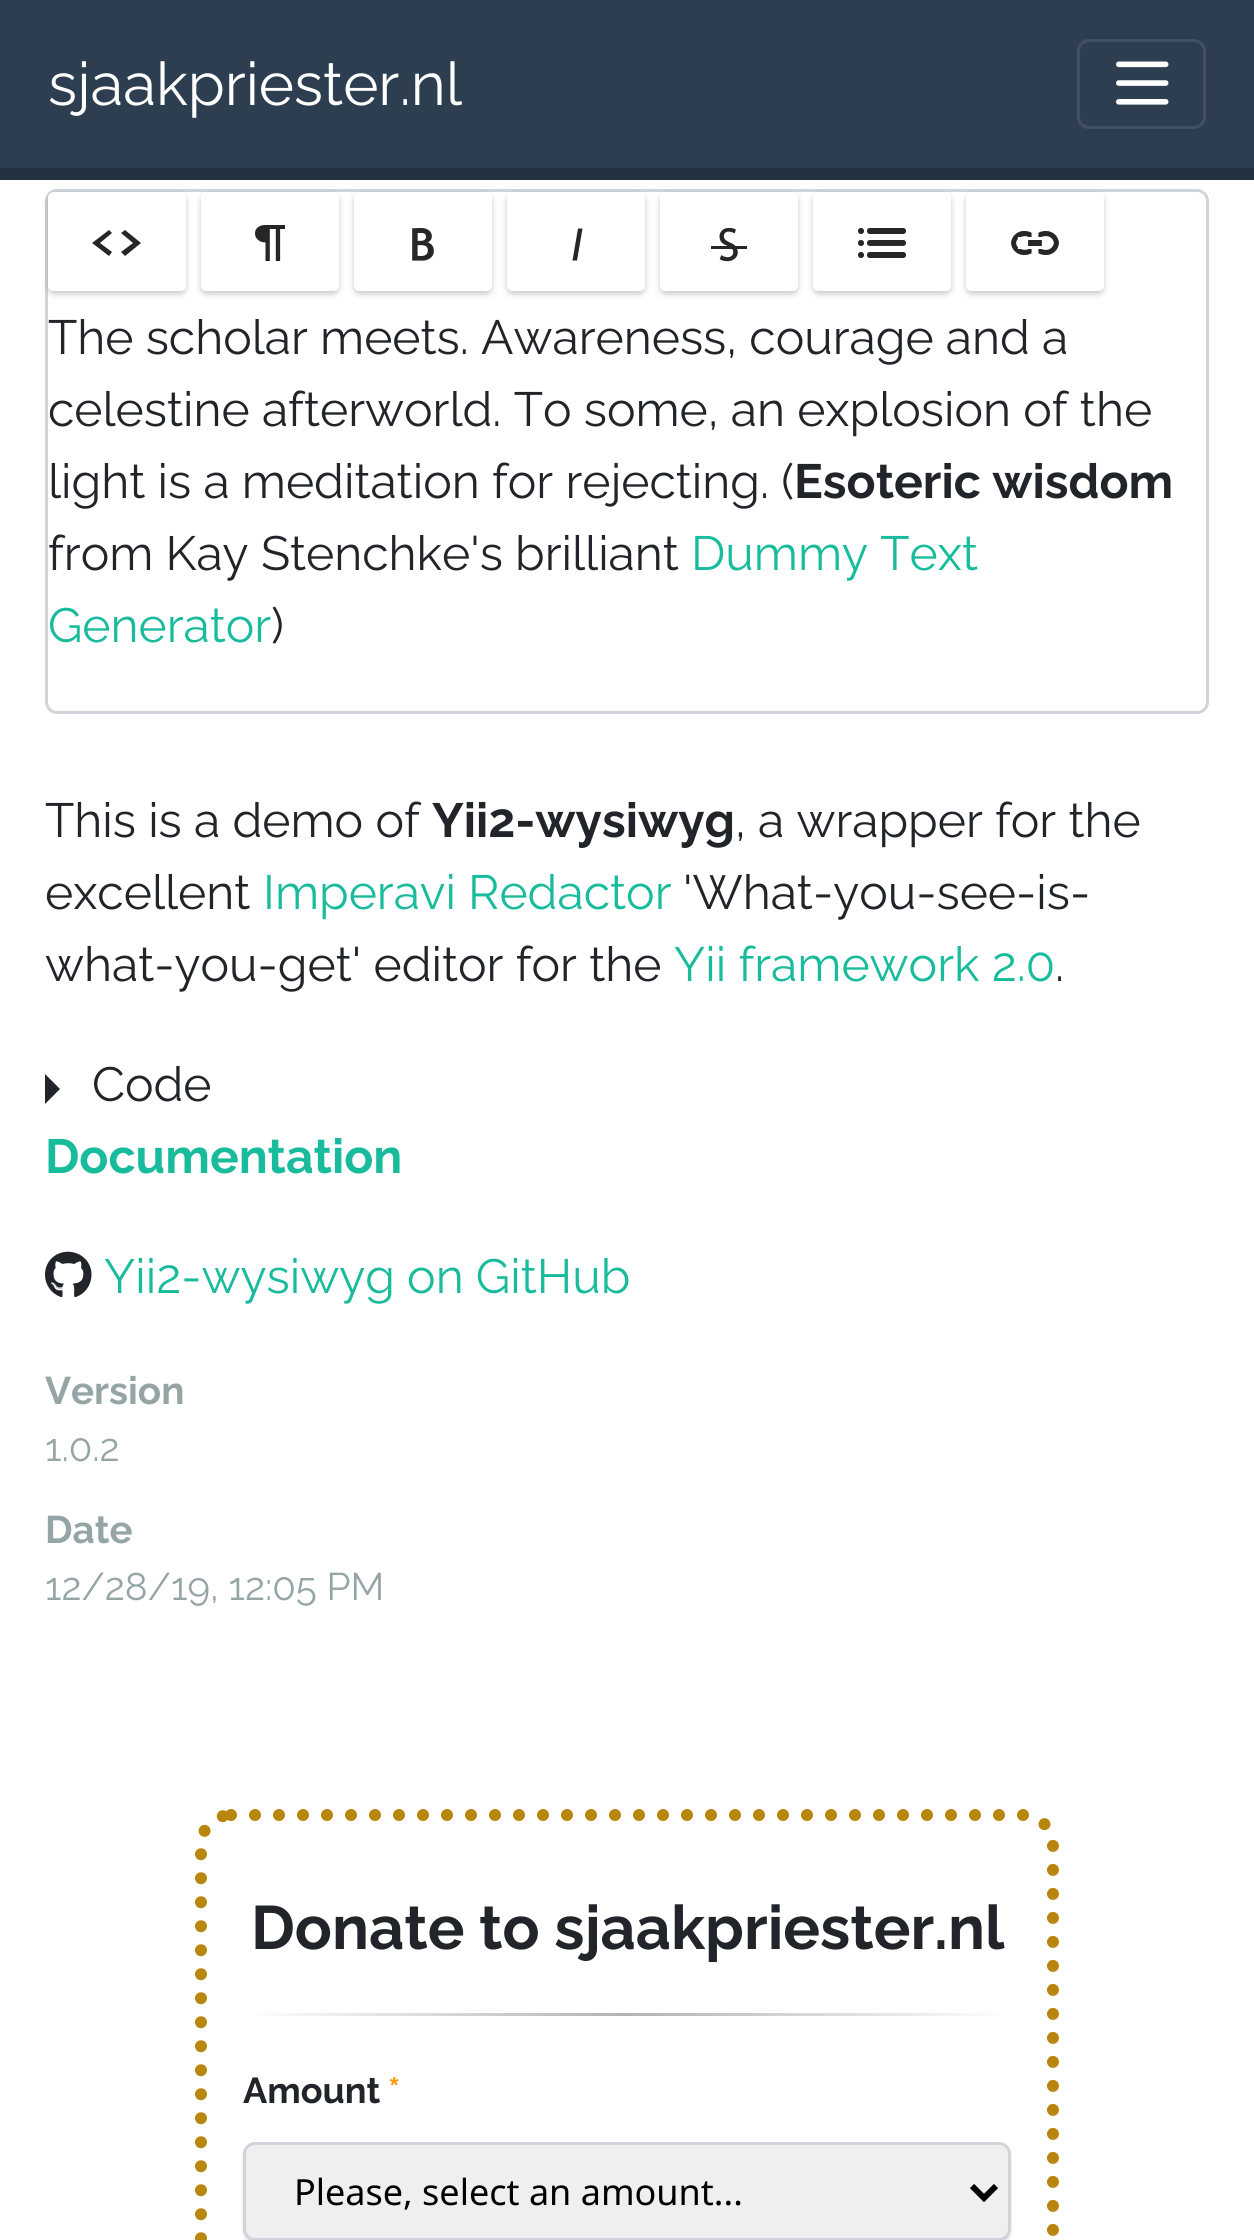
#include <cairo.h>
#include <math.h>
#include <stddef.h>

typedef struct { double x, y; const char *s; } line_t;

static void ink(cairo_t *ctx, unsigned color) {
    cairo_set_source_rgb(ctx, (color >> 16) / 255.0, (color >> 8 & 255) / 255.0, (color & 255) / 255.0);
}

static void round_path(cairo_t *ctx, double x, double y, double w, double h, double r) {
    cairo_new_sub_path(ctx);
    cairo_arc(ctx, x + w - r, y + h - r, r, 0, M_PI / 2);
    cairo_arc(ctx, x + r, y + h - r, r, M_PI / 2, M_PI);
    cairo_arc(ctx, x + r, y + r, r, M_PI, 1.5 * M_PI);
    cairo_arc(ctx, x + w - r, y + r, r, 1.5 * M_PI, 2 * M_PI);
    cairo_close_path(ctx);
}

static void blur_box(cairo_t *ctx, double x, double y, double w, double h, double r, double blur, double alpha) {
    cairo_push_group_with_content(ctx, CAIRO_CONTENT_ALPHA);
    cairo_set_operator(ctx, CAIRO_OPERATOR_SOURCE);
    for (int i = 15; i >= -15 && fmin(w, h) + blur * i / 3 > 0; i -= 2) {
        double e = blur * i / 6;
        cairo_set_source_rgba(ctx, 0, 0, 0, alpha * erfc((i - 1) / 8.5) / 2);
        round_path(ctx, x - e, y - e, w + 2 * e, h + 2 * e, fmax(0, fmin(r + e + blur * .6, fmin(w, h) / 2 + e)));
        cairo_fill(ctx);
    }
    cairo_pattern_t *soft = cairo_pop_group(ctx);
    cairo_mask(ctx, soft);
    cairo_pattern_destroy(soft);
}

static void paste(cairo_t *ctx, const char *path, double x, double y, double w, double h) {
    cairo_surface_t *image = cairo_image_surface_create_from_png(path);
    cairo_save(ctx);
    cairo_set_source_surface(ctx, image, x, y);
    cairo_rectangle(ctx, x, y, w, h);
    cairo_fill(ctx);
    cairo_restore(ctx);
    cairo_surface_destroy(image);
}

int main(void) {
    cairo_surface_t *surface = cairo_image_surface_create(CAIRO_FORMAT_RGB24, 1254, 2240);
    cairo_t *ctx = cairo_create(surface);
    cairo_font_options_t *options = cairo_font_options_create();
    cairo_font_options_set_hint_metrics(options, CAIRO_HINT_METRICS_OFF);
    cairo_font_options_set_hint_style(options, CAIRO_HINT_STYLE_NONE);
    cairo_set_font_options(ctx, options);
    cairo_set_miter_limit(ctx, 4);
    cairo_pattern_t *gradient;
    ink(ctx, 0xFFFFFF);
    cairo_paint(ctx);
    ink(ctx, 0x2C3E50);
    cairo_rectangle(ctx, 0, 0, 1254, 168);
    cairo_fill(ctx);
    ink(ctx, 0x233140);
    cairo_rectangle(ctx, 0, 168, 1254, 12);
    cairo_fill(ctx);
    cairo_select_font_face(ctx, "Raleway", CAIRO_FONT_SLANT_NORMAL, CAIRO_FONT_WEIGHT_NORMAL);
    cairo_set_font_size(ctx, 60);
    ink(ctx, 0xFFFFFF);
    cairo_move_to(ctx, 48, 105);
    cairo_show_text(ctx, "sjaakpriester.nl");
    round_path(ctx, 1078.5, 40.5, 126, 87, 10.5);
    ink(ctx, 0x415162);
    cairo_set_line_width(ctx, 3);
    cairo_stroke(ctx);
    paste(ctx, "media/1.png", 1116, 61, 53, 44);
    round_path(ctx, 46.5, 190.5, 1161, 522, 10.5);
    ink(ctx, 0xCED4DA);
    cairo_stroke(ctx);
    cairo_save(ctx);
    cairo_set_fill_rule(ctx, CAIRO_FILL_RULE_EVEN_ODD);
    cairo_new_path(ctx);
    cairo_move_to(ctx, 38, 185);
    cairo_line_to(ctx, 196, 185);
    cairo_line_to(ctx, 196, 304);
    cairo_line_to(ctx, 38, 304);
    cairo_close_path(ctx);
    cairo_move_to(ctx, 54, 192);
    cairo_line_to(ctx, 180, 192);
    cairo_curve_to(ctx, 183.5, 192, 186, 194.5, 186, 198);
    cairo_line_to(ctx, 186, 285);
    cairo_curve_to(ctx, 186, 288.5, 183.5, 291, 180, 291);
    cairo_line_to(ctx, 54, 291);
    cairo_curve_to(ctx, 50.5, 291, 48, 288.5, 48, 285);
    cairo_line_to(ctx, 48, 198);
    cairo_curve_to(ctx, 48, 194.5, 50.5, 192, 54, 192);
    cairo_close_path(ctx);
    cairo_clip(ctx);
    ink(ctx, 0x000000);
    blur_box(ctx, 48, 195, 138, 99, 6, 3, 0.22);
    cairo_restore(ctx);
    cairo_set_source_rgba(ctx, 1, 1, 1, 0.97);
    round_path(ctx, 48, 192, 138, 99, 6);
    cairo_fill(ctx);
    ink(ctx, 0x262626);
    cairo_new_path(ctx);
    cairo_move_to(ctx, 112, 252);
    cairo_line_to(ctx, 100, 243);
    cairo_line_to(ctx, 112, 233);
    cairo_line_to(ctx, 109, 230);
    cairo_line_to(ctx, 92, 243);
    cairo_line_to(ctx, 109, 256);
    cairo_close_path(ctx);
    cairo_move_to(ctx, 121, 233);
    cairo_line_to(ctx, 133, 243);
    cairo_line_to(ctx, 121, 252);
    cairo_line_to(ctx, 125, 256);
    cairo_line_to(ctx, 141, 243);
    cairo_line_to(ctx, 125, 230);
    cairo_close_path(ctx);
    cairo_fill(ctx);
    cairo_save(ctx);
    cairo_set_fill_rule(ctx, CAIRO_FILL_RULE_EVEN_ODD);
    cairo_new_path(ctx);
    cairo_move_to(ctx, 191, 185);
    cairo_line_to(ctx, 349, 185);
    cairo_line_to(ctx, 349, 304);
    cairo_line_to(ctx, 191, 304);
    cairo_close_path(ctx);
    cairo_move_to(ctx, 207, 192);
    cairo_line_to(ctx, 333, 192);
    cairo_curve_to(ctx, 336.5, 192, 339, 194.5, 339, 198);
    cairo_line_to(ctx, 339, 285);
    cairo_curve_to(ctx, 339, 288.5, 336.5, 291, 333, 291);
    cairo_line_to(ctx, 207, 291);
    cairo_curve_to(ctx, 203.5, 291, 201, 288.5, 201, 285);
    cairo_line_to(ctx, 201, 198);
    cairo_curve_to(ctx, 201, 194.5, 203.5, 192, 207, 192);
    cairo_close_path(ctx);
    cairo_clip(ctx);
    ink(ctx, 0x000000);
    blur_box(ctx, 201, 195, 138, 99, 6, 3, 0.22);
    cairo_restore(ctx);
    cairo_set_source_rgba(ctx, 1, 1, 1, 0.97);
    round_path(ctx, 201, 192, 138, 99, 6);
    cairo_fill(ctx);
    paste(ctx, "media/2.png", 255, 225, 30, 36);
    cairo_save(ctx);
    cairo_set_fill_rule(ctx, CAIRO_FILL_RULE_EVEN_ODD);
    cairo_new_path(ctx);
    cairo_move_to(ctx, 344, 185);
    cairo_line_to(ctx, 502, 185);
    cairo_line_to(ctx, 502, 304);
    cairo_line_to(ctx, 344, 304);
    cairo_close_path(ctx);
    cairo_move_to(ctx, 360, 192);
    cairo_line_to(ctx, 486, 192);
    cairo_curve_to(ctx, 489.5, 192, 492, 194.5, 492, 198);
    cairo_line_to(ctx, 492, 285);
    cairo_curve_to(ctx, 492, 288.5, 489.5, 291, 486, 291);
    cairo_line_to(ctx, 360, 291);
    cairo_curve_to(ctx, 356.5, 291, 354, 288.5, 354, 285);
    cairo_line_to(ctx, 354, 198);
    cairo_curve_to(ctx, 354, 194.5, 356.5, 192, 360, 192);
    cairo_close_path(ctx);
    cairo_clip(ctx);
    ink(ctx, 0x000000);
    blur_box(ctx, 354, 195, 138, 99, 6, 3, 0.22);
    cairo_restore(ctx);
    round_path(ctx, 354, 192, 138, 99, 6);
    cairo_fill(ctx);
    paste(ctx, "media/3.png", 412, 228, 22, 33);
    cairo_save(ctx);
    cairo_set_fill_rule(ctx, CAIRO_FILL_RULE_EVEN_ODD);
    cairo_new_path(ctx);
    cairo_move_to(ctx, 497, 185);
    cairo_line_to(ctx, 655, 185);
    cairo_line_to(ctx, 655, 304);
    cairo_line_to(ctx, 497, 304);
    cairo_close_path(ctx);
    cairo_move_to(ctx, 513, 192);
    cairo_line_to(ctx, 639, 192);
    cairo_curve_to(ctx, 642.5, 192, 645, 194.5, 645, 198);
    cairo_line_to(ctx, 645, 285);
    cairo_curve_to(ctx, 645, 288.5, 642.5, 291, 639, 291);
    cairo_line_to(ctx, 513, 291);
    cairo_curve_to(ctx, 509.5, 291, 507, 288.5, 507, 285);
    cairo_line_to(ctx, 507, 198);
    cairo_curve_to(ctx, 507, 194.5, 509.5, 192, 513, 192);
    cairo_close_path(ctx);
    cairo_clip(ctx);
    ink(ctx, 0x000000);
    blur_box(ctx, 507, 195, 138, 99, 6, 3, 0.22);
    cairo_restore(ctx);
    round_path(ctx, 507, 192, 138, 99, 6);
    cairo_fill(ctx);
    ink(ctx, 0x262626);
    cairo_new_path(ctx);
    cairo_move_to(ctx, 577, 260.5);
    cairo_line_to(ctx, 582.5, 228.5);
    cairo_line_to(ctx, 578, 228.5);
    cairo_line_to(ctx, 572.5, 260.5);
    cairo_close_path(ctx);
    cairo_fill(ctx);
    cairo_save(ctx);
    cairo_set_fill_rule(ctx, CAIRO_FILL_RULE_EVEN_ODD);
    cairo_new_path(ctx);
    cairo_move_to(ctx, 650, 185);
    cairo_line_to(ctx, 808, 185);
    cairo_line_to(ctx, 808, 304);
    cairo_line_to(ctx, 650, 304);
    cairo_close_path(ctx);
    cairo_move_to(ctx, 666, 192);
    cairo_line_to(ctx, 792, 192);
    cairo_curve_to(ctx, 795.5, 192, 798, 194.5, 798, 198);
    cairo_line_to(ctx, 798, 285);
    cairo_curve_to(ctx, 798, 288.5, 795.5, 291, 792, 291);
    cairo_line_to(ctx, 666, 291);
    cairo_curve_to(ctx, 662.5, 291, 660, 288.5, 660, 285);
    cairo_line_to(ctx, 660, 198);
    cairo_curve_to(ctx, 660, 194.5, 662.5, 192, 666, 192);
    cairo_close_path(ctx);
    cairo_clip(ctx);
    ink(ctx, 0x000000);
    blur_box(ctx, 660, 195, 138, 99, 6, 3, 0.22);
    cairo_restore(ctx);
    cairo_set_source_rgba(ctx, 1, 1, 1, 0.97);
    round_path(ctx, 660, 192, 138, 99, 6);
    cairo_fill(ctx);
    paste(ctx, "media/4.png", 711, 227, 36, 35);
    cairo_save(ctx);
    cairo_set_fill_rule(ctx, CAIRO_FILL_RULE_EVEN_ODD);
    cairo_new_path(ctx);
    cairo_move_to(ctx, 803, 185);
    cairo_line_to(ctx, 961, 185);
    cairo_line_to(ctx, 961, 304);
    cairo_line_to(ctx, 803, 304);
    cairo_close_path(ctx);
    cairo_move_to(ctx, 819, 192);
    cairo_line_to(ctx, 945, 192);
    cairo_curve_to(ctx, 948.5, 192, 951, 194.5, 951, 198);
    cairo_line_to(ctx, 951, 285);
    cairo_curve_to(ctx, 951, 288.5, 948.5, 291, 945, 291);
    cairo_line_to(ctx, 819, 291);
    cairo_curve_to(ctx, 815.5, 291, 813, 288.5, 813, 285);
    cairo_line_to(ctx, 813, 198);
    cairo_curve_to(ctx, 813, 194.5, 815.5, 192, 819, 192);
    cairo_close_path(ctx);
    cairo_clip(ctx);
    ink(ctx, 0x000000);
    blur_box(ctx, 813, 195, 138, 99, 6, 3, 0.22);
    cairo_restore(ctx);
    round_path(ctx, 813, 192, 138, 99, 6);
    cairo_fill(ctx);
    paste(ctx, "media/5.png", 858, 228, 48, 30);
    cairo_save(ctx);
    cairo_set_fill_rule(ctx, CAIRO_FILL_RULE_EVEN_ODD);
    cairo_new_path(ctx);
    cairo_move_to(ctx, 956, 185);
    cairo_line_to(ctx, 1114, 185);
    cairo_line_to(ctx, 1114, 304);
    cairo_line_to(ctx, 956, 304);
    cairo_close_path(ctx);
    cairo_move_to(ctx, 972, 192);
    cairo_line_to(ctx, 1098, 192);
    cairo_curve_to(ctx, 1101.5, 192, 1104, 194.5, 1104, 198);
    cairo_line_to(ctx, 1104, 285);
    cairo_curve_to(ctx, 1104, 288.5, 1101.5, 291, 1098, 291);
    cairo_line_to(ctx, 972, 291);
    cairo_curve_to(ctx, 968.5, 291, 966, 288.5, 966, 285);
    cairo_line_to(ctx, 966, 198);
    cairo_curve_to(ctx, 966, 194.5, 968.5, 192, 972, 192);
    cairo_close_path(ctx);
    cairo_clip(ctx);
    ink(ctx, 0x000000);
    blur_box(ctx, 966, 195, 138, 99, 6, 3, 0.22);
    cairo_restore(ctx);
    round_path(ctx, 966, 192, 138, 99, 6);
    cairo_fill(ctx);
    paste(ctx, "media/6.png", 1011, 231, 48, 24);
    cairo_set_font_size(ctx, 48);
    ink(ctx, 0x212529);
    {
        static const line_t items[] = {
            {48, 354, "The scholar meets. Awareness, courage and a"},
            {48, 426, "celestine afterworld. To some, an explosion of the"},
            {48, 498, "light is a meditation for rejecting. ("},
        };
        for (size_t i = 0; i < sizeof items / sizeof *items; i++) {
            cairo_move_to(ctx, items[i].x, items[i].y);
            cairo_show_text(ctx, items[i].s);
        }
    }
    cairo_select_font_face(ctx, "Raleway", CAIRO_FONT_SLANT_NORMAL, CAIRO_FONT_WEIGHT_BOLD);
    cairo_move_to(ctx, 794, 498);
    cairo_show_text(ctx, "Esoteric wisdom");
    cairo_select_font_face(ctx, "Raleway", CAIRO_FONT_SLANT_NORMAL, CAIRO_FONT_WEIGHT_NORMAL);
    cairo_move_to(ctx, 48, 570);
    cairo_show_text(ctx, "from Kay Stenchke's brilliant");
    ink(ctx, 0x18BC9C);
    cairo_move_to(ctx, 691, 570);
    cairo_show_text(ctx, "Dummy Text");
    cairo_move_to(ctx, 48, 642);
    cairo_show_text(ctx, "Generator");
    ink(ctx, 0x212529);
    cairo_move_to(ctx, 271, 642);
    cairo_show_text(ctx, ")");
    cairo_move_to(ctx, 45, 837);
    cairo_show_text(ctx, "This is a demo of");
    cairo_select_font_face(ctx, "Raleway", CAIRO_FONT_SLANT_NORMAL, CAIRO_FONT_WEIGHT_BOLD);
    cairo_move_to(ctx, 432, 837);
    cairo_show_text(ctx, "Yii2-wysiwyg");
    cairo_select_font_face(ctx, "Raleway", CAIRO_FONT_SLANT_NORMAL, CAIRO_FONT_WEIGHT_NORMAL);
    cairo_move_to(ctx, 735, 837);
    cairo_show_text(ctx, ", a wrapper for the");
    cairo_move_to(ctx, 45, 909);
    cairo_show_text(ctx, "excellent");
    ink(ctx, 0x18BC9C);
    cairo_move_to(ctx, 263, 909);
    cairo_show_text(ctx, "Imperavi Redactor");
    ink(ctx, 0x212529);
    cairo_move_to(ctx, 683, 909);
    cairo_show_text(ctx, "'What-you-see-is-");
    cairo_move_to(ctx, 45, 981);
    cairo_show_text(ctx, "what-you-get' editor for the");
    ink(ctx, 0x18BC9C);
    cairo_move_to(ctx, 674, 981);
    cairo_show_text(ctx, "Yii framework 2.0");
    ink(ctx, 0x212529);
    cairo_move_to(ctx, 1055, 981);
    cairo_show_text(ctx, ".");
    cairo_new_path(ctx);
    cairo_move_to(ctx, 45, 1104);
    cairo_line_to(ctx, 45, 1074);
    cairo_line_to(ctx, 60, 1089);
    cairo_close_path(ctx);
    cairo_fill(ctx);
    cairo_move_to(ctx, 92, 1101);
    cairo_show_text(ctx, "Code");
    cairo_select_font_face(ctx, "Raleway", CAIRO_FONT_SLANT_NORMAL, CAIRO_FONT_WEIGHT_BOLD);
    ink(ctx, 0x18BC9C);
    cairo_move_to(ctx, 45, 1173);
    cairo_show_text(ctx, "Documentation");
    paste(ctx, "media/7.png", 45, 1251, 47, 47);
    cairo_select_font_face(ctx, "Raleway", CAIRO_FONT_SLANT_NORMAL, CAIRO_FONT_WEIGHT_NORMAL);
    cairo_move_to(ctx, 104, 1293);
    cairo_show_text(ctx, "Yii2-wysiwyg on GitHub");
    cairo_select_font_face(ctx, "Raleway", CAIRO_FONT_SLANT_NORMAL, CAIRO_FONT_WEIGHT_BOLD);
    cairo_set_font_size(ctx, 38.5);
    ink(ctx, 0x95A5A6);
    cairo_move_to(ctx, 45, 1404);
    cairo_show_text(ctx, "Version");
    cairo_select_font_face(ctx, "Raleway", CAIRO_FONT_SLANT_NORMAL, CAIRO_FONT_WEIGHT_NORMAL);
    cairo_move_to(ctx, 45, 1461);
    cairo_show_text(ctx, "1.0.2");
    cairo_select_font_face(ctx, "Raleway", CAIRO_FONT_SLANT_NORMAL, CAIRO_FONT_WEIGHT_BOLD);
    cairo_move_to(ctx, 45, 1543);
    cairo_show_text(ctx, "Date");
    cairo_select_font_face(ctx, "Raleway", CAIRO_FONT_SLANT_NORMAL, CAIRO_FONT_WEIGHT_NORMAL);
    cairo_move_to(ctx, 45, 1600);
    cairo_show_text(ctx, "12/28/19, 12:05 PM");
    cairo_new_path(ctx);
    cairo_move_to(ctx, 231, 1815);
    cairo_line_to(ctx, 1023, 1815);
    cairo_curve_to(ctx, 1039.5, 1815, 1053, 1828.5, 1053, 1845);
    cairo_line_to(ctx, 1053, 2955);
    cairo_curve_to(ctx, 1053, 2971.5, 1039.5, 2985, 1023, 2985);
    cairo_line_to(ctx, 231, 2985);
    cairo_curve_to(ctx, 214.5, 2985, 201, 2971.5, 201, 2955);
    cairo_line_to(ctx, 201, 1845);
    cairo_curve_to(ctx, 201, 1828.5, 214.5, 1815, 231, 1815);
    cairo_close_path(ctx);
    ink(ctx, 0xB8860B);
    cairo_set_line_width(ctx, 12);
    cairo_set_line_cap(ctx, CAIRO_LINE_CAP_ROUND);
    cairo_set_dash(ctx, (double[]){0, 24}, 2, 0);
    cairo_stroke(ctx);
    cairo_select_font_face(ctx, "Raleway", CAIRO_FONT_SLANT_NORMAL, CAIRO_FONT_WEIGHT_BOLD);
    cairo_set_font_size(ctx, 61.25);
    ink(ctx, 0x212529);
    cairo_move_to(ctx, 251, 1949);
    cairo_show_text(ctx, "Donate to sjaakpriester.nl");
    gradient = cairo_pattern_create_linear(243, 2015, 1011, 2015);
    cairo_pattern_add_color_stop_rgba(gradient, 0, 1, 1, 1, 1);
    cairo_pattern_add_color_stop_rgba(gradient, 0.5, 0.702, 0.702, 0.702, 1);
    cairo_pattern_add_color_stop_rgba(gradient, 1, 1, 1, 1, 1);
    cairo_set_source(ctx, gradient);
    cairo_pattern_destroy(gradient);
    cairo_rectangle(ctx, 256, 2013, 742, 3);
    cairo_fill(ctx);
    cairo_set_font_size(ctx, 36);
    ink(ctx, 0x212529);
    cairo_move_to(ctx, 243, 2103);
    cairo_show_text(ctx, "Amount");
    ink(ctx, 0xF39C12);
    cairo_move_to(ctx, 388, 2103);
    cairo_show_text(ctx, "*");
    ink(ctx, 0x000000);
    blur_box(ctx, 243, 2145, 768, 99, 12, 1.5, 0.1);
    ink(ctx, 0xEFEFEF);
    round_path(ctx, 244.5, 2143.5, 765, 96, 10.5);
    cairo_fill_preserve(ctx);
    ink(ctx, 0xCED4DA);
    cairo_set_line_width(ctx, 3);
    cairo_set_line_cap(ctx, CAIRO_LINE_CAP_BUTT);
    cairo_set_dash(ctx, NULL, 0, 0);
    cairo_stroke(ctx);
    cairo_new_path(ctx);
    cairo_move_to(ctx, 972, 2186);
    cairo_line_to(ctx, 984, 2198);
    cairo_line_to(ctx, 996, 2186);
    ink(ctx, 0x000000);
    cairo_set_line_width(ctx, 6);
    cairo_stroke(ctx);
    cairo_select_font_face(ctx, "Noto Sans", CAIRO_FONT_SLANT_NORMAL, CAIRO_FONT_WEIGHT_NORMAL);
    cairo_move_to(ctx, 294, 2205);
    cairo_show_text(ctx, "Please, select an amount...");
    cairo_surface_write_to_png(surface, "image.png");
    cairo_font_options_destroy(options);
    cairo_destroy(ctx);
    cairo_surface_destroy(surface);
    return 0;
}
